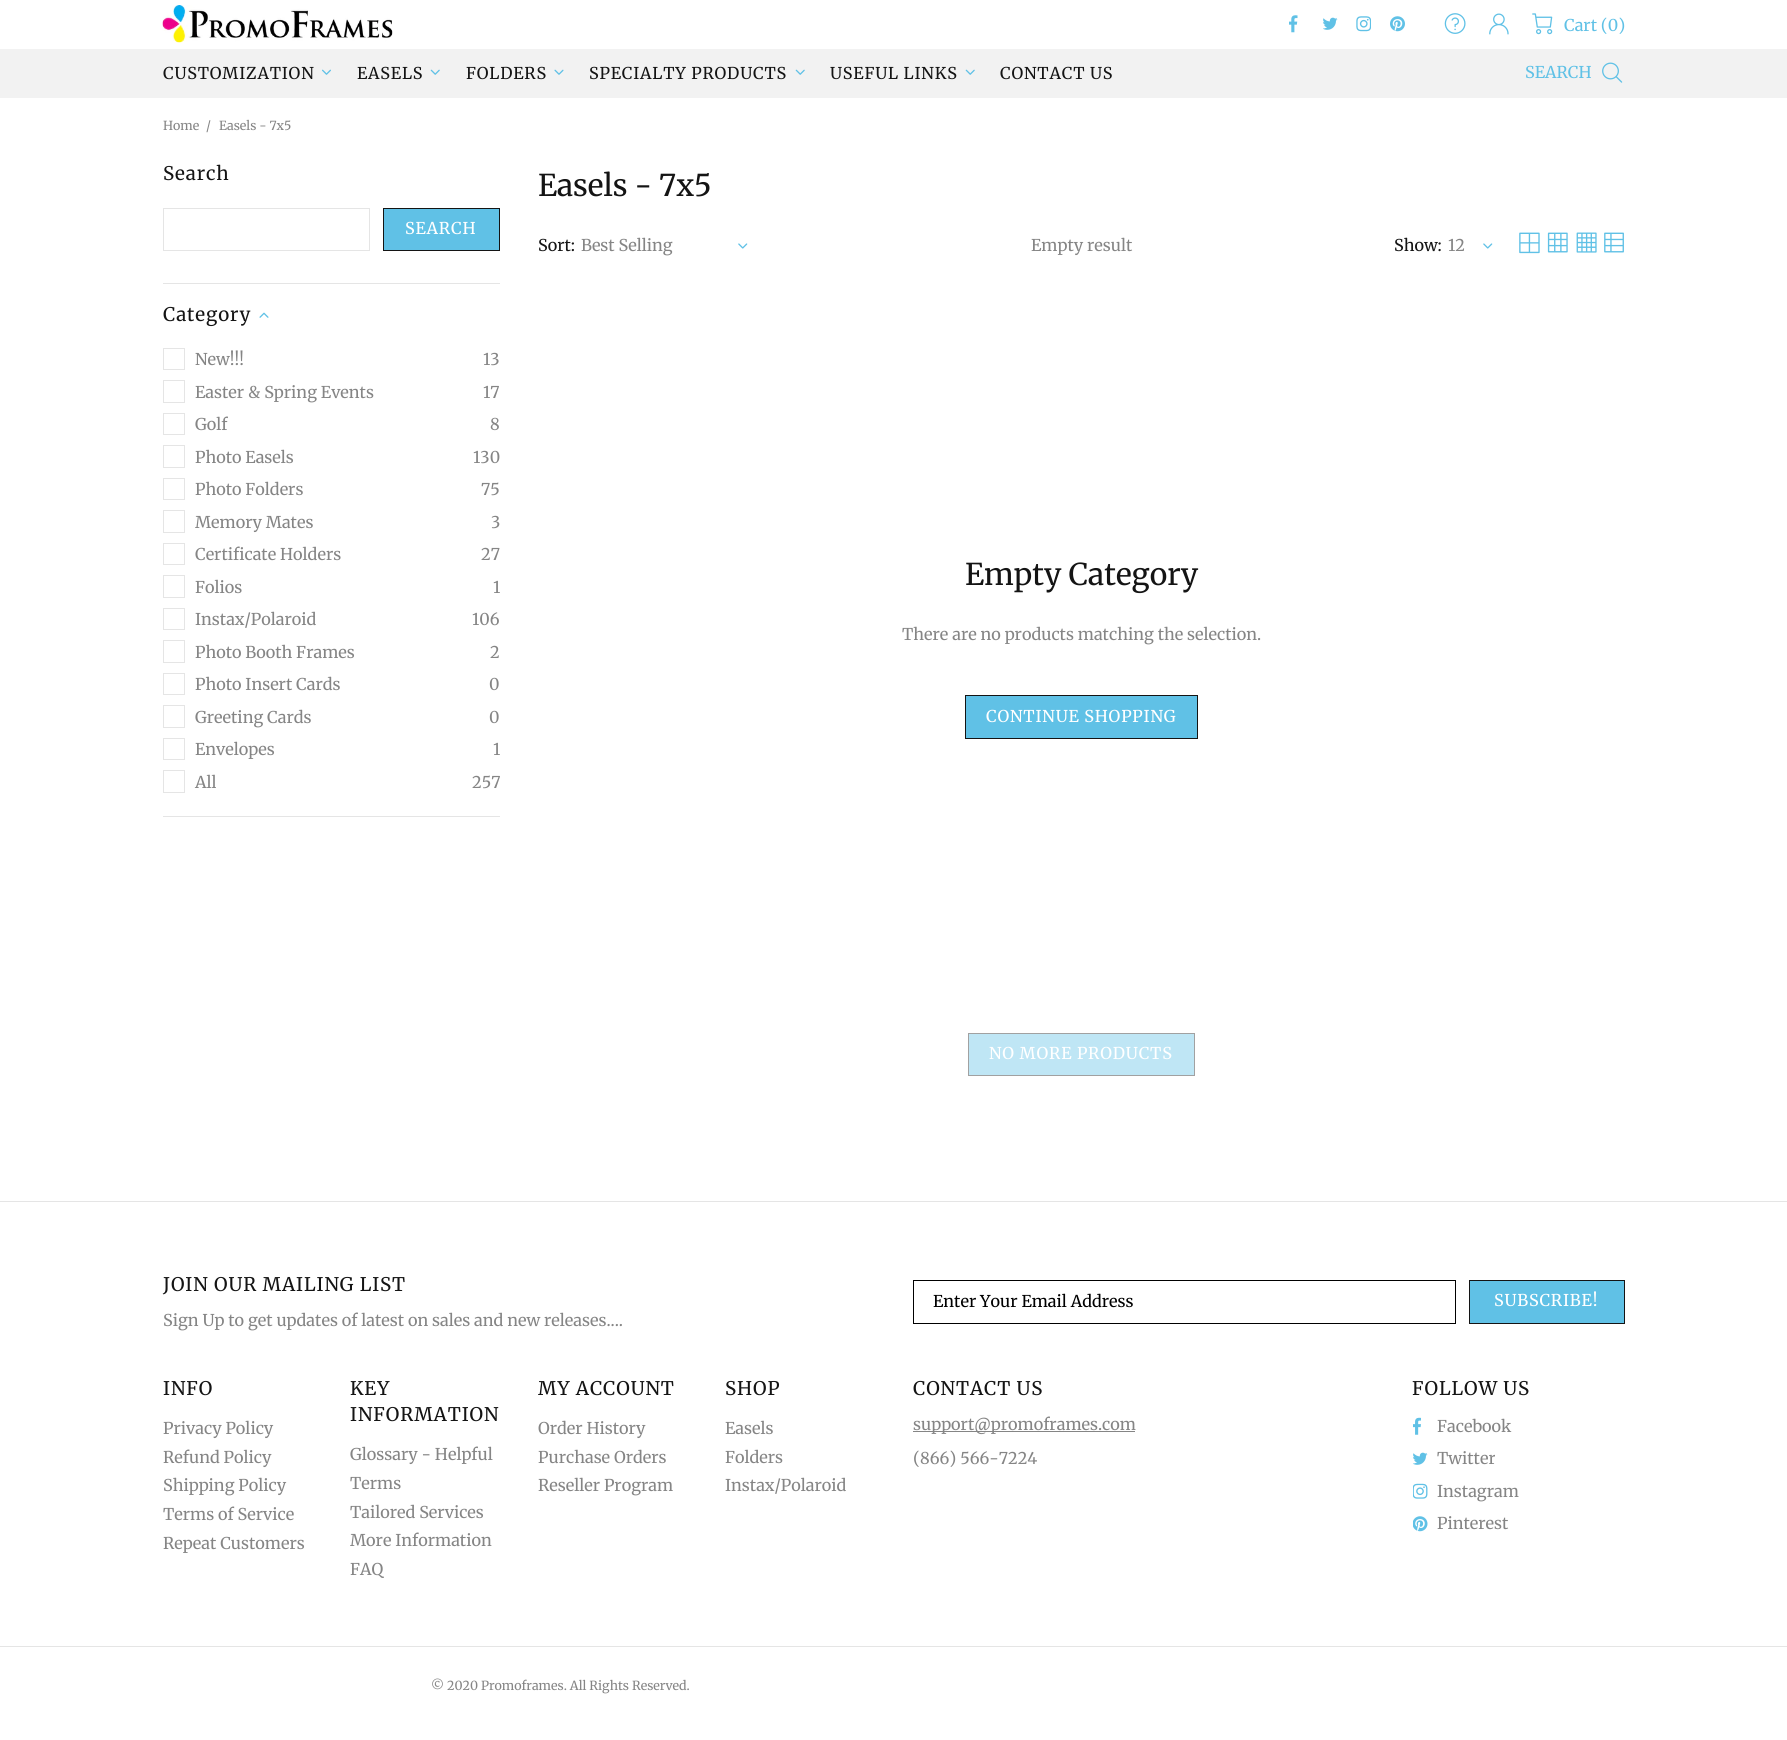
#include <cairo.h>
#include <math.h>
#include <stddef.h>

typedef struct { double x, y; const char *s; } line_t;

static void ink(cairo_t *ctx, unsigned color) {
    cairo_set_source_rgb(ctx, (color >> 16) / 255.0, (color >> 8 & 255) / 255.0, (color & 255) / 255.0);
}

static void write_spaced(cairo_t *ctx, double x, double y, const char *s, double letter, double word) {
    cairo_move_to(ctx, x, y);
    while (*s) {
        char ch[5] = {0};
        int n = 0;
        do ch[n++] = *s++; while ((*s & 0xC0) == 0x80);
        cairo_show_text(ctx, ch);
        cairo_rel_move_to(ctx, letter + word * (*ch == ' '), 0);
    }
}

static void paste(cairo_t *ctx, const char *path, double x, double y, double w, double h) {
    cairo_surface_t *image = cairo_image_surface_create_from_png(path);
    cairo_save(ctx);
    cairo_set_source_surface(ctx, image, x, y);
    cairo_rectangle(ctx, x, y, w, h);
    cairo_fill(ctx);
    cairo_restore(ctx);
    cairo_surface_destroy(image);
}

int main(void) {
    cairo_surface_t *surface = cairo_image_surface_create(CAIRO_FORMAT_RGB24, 1787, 1740);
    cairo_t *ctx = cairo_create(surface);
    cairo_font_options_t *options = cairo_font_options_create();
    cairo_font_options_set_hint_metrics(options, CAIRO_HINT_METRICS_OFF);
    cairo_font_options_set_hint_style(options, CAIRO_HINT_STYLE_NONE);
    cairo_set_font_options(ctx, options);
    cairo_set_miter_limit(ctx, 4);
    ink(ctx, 0xFFFFFF);
    cairo_paint(ctx);
    paste(ctx, "media/1.png", 162, 5, 231, 38);
    paste(ctx, "media/2.png", 1289, 15, 9, 18);
    paste(ctx, "media/3.png", 1323, 17, 15, 13);
    paste(ctx, "media/4.png", 1356, 16, 15, 16);
    paste(ctx, "media/5.png", 1390, 16, 15, 16);
    paste(ctx, "media/6.png", 1444, 13, 22, 21);
    paste(ctx, "media/7.png", 1489, 13, 20, 22);
    paste(ctx, "media/8.png", 1532, 13, 21, 22);
    cairo_select_font_face(ctx, "Merriweather Light", CAIRO_FONT_SLANT_NORMAL, CAIRO_FONT_WEIGHT_NORMAL);
    cairo_set_font_size(ctx, 16.25);
    ink(ctx, 0x60C1E6);
    cairo_move_to(ctx, 1564, 31);
    cairo_show_text(ctx, "Cart (0)");
    ink(ctx, 0xF2F2F2);
    cairo_rectangle(ctx, 0, 49, 1787, 49);
    cairo_fill(ctx);
    ink(ctx, 0x141414);
    write_spaced(ctx, 163, 79, "CUSTOMIZATION", 0.8, 0);
    paste(ctx, "media/9.png", 322, 69, 9, 6);
    write_spaced(ctx, 357, 79, "EASELS", 0.8, 0);
    paste(ctx, "media/10.png", 430, 69, 10, 6);
    write_spaced(ctx, 466, 79, "FOLDERS", 0.8, 0);
    paste(ctx, "media/11.png", 554, 69, 10, 6);
    write_spaced(ctx, 589, 79, "SPECIALTY PRODUCTS", 0.8, 0);
    paste(ctx, "media/10.png", 795, 69, 10, 6);
    write_spaced(ctx, 830, 79, "USEFUL LINKS", 0.8, 0);
    paste(ctx, "media/10.png", 965, 69, 10, 6);
    write_spaced(ctx, 1000, 79, "CONTACT US", 0.8, 0);
    ink(ctx, 0x60C1E6);
    cairo_move_to(ctx, 1525, 78);
    cairo_show_text(ctx, "SEARCH");
    paste(ctx, "media/12.png", 1602, 62, 21, 21);
    cairo_set_font_size(ctx, 12.5);
    ink(ctx, 0x858585);
    {
        static const line_t items[] = {
            {163, 130, "Home"},
            {206, 130, "/"},
            {219, 130, "Easels - 7x5"},
        };
        for (size_t i = 0; i < sizeof items / sizeof *items; i++) {
            cairo_move_to(ctx, items[i].x, items[i].y);
            cairo_show_text(ctx, items[i].s);
        }
    }
    cairo_set_font_size(ctx, 18.75);
    ink(ctx, 0x141414);
    write_spaced(ctx, 163, 180, "Search", 0.9, 0);
    cairo_rectangle(ctx, 163.5, 208.5, 206, 42);
    ink(ctx, 0xE5E5E5);
    cairo_set_line_width(ctx, 1);
    cairo_stroke(ctx);
    ink(ctx, 0x60C1E6);
    cairo_rectangle(ctx, 383.5, 208.5, 116, 42);
    cairo_fill_preserve(ctx);
    ink(ctx, 0x141414);
    cairo_stroke(ctx);
    cairo_set_font_size(ctx, 16.25);
    ink(ctx, 0xFFFFFF);
    write_spaced(ctx, 405, 234, "SEARCH", 0.8, 0);
    ink(ctx, 0xE5E5E5);
    cairo_rectangle(ctx, 163, 283, 337, 1);
    cairo_fill(ctx);
    cairo_set_font_size(ctx, 18.75);
    ink(ctx, 0x141414);
    write_spaced(ctx, 163, 321, "Category", 0.9, 0);
    paste(ctx, "media/13.png", 259, 312, 10, 6);
    cairo_rectangle(ctx, 163.5, 348.5, 21, 21);
    ink(ctx, 0xE5E5E5);
    cairo_stroke(ctx);
    cairo_set_font_size(ctx, 16.25);
    ink(ctx, 0x858585);
    cairo_move_to(ctx, 195, 365);
    cairo_show_text(ctx, "New!!!");
    cairo_move_to(ctx, 483, 365);
    cairo_show_text(ctx, "13");
    cairo_rectangle(ctx, 163.5, 380.5, 21, 22);
    ink(ctx, 0xE5E5E5);
    cairo_stroke(ctx);
    ink(ctx, 0x858585);
    cairo_move_to(ctx, 195, 398);
    cairo_show_text(ctx, "Easter & Spring Events");
    cairo_move_to(ctx, 483, 398);
    cairo_show_text(ctx, "17");
    cairo_rectangle(ctx, 163.5, 413.5, 21, 21);
    ink(ctx, 0xE5E5E5);
    cairo_stroke(ctx);
    ink(ctx, 0x858585);
    cairo_move_to(ctx, 195, 430);
    cairo_show_text(ctx, "Golf");
    cairo_move_to(ctx, 490, 430);
    cairo_show_text(ctx, "8");
    cairo_rectangle(ctx, 163.5, 445.5, 21, 22);
    ink(ctx, 0xE5E5E5);
    cairo_stroke(ctx);
    ink(ctx, 0x858585);
    cairo_move_to(ctx, 195, 463);
    cairo_show_text(ctx, "Photo Easels");
    cairo_move_to(ctx, 473, 463);
    cairo_show_text(ctx, "130");
    cairo_rectangle(ctx, 163.5, 478.5, 21, 21);
    ink(ctx, 0xE5E5E5);
    cairo_stroke(ctx);
    ink(ctx, 0x858585);
    cairo_move_to(ctx, 195, 495);
    cairo_show_text(ctx, "Photo Folders");
    cairo_move_to(ctx, 481, 495);
    cairo_show_text(ctx, "75");
    cairo_rectangle(ctx, 163.5, 510.5, 21, 22);
    ink(ctx, 0xE5E5E5);
    cairo_stroke(ctx);
    ink(ctx, 0x858585);
    cairo_move_to(ctx, 195, 528);
    cairo_show_text(ctx, "Memory Mates");
    cairo_move_to(ctx, 491, 528);
    cairo_show_text(ctx, "3");
    cairo_rectangle(ctx, 163.5, 543.5, 21, 21);
    ink(ctx, 0xE5E5E5);
    cairo_stroke(ctx);
    ink(ctx, 0x858585);
    cairo_move_to(ctx, 195, 560);
    cairo_show_text(ctx, "Certificate Holders");
    cairo_move_to(ctx, 481, 560);
    cairo_show_text(ctx, "27");
    cairo_rectangle(ctx, 163.5, 575.5, 21, 22);
    ink(ctx, 0xE5E5E5);
    cairo_stroke(ctx);
    ink(ctx, 0x858585);
    cairo_move_to(ctx, 195, 593);
    cairo_show_text(ctx, "Folios");
    cairo_move_to(ctx, 493, 593);
    cairo_show_text(ctx, "1");
    cairo_rectangle(ctx, 163.5, 608.5, 21, 21);
    ink(ctx, 0xE5E5E5);
    cairo_stroke(ctx);
    ink(ctx, 0x858585);
    cairo_move_to(ctx, 195, 625);
    cairo_show_text(ctx, "Instax/Polaroid");
    cairo_move_to(ctx, 472, 625);
    cairo_show_text(ctx, "106");
    cairo_rectangle(ctx, 163.5, 640.5, 21, 22);
    ink(ctx, 0xE5E5E5);
    cairo_stroke(ctx);
    ink(ctx, 0x858585);
    cairo_move_to(ctx, 195, 658);
    cairo_show_text(ctx, "Photo Booth Frames");
    cairo_move_to(ctx, 490, 658);
    cairo_show_text(ctx, "2");
    cairo_rectangle(ctx, 163.5, 673.5, 21, 21);
    ink(ctx, 0xE5E5E5);
    cairo_stroke(ctx);
    ink(ctx, 0x858585);
    cairo_move_to(ctx, 195, 690);
    cairo_show_text(ctx, "Photo Insert Cards");
    cairo_move_to(ctx, 489, 690);
    cairo_show_text(ctx, "0");
    cairo_rectangle(ctx, 163.5, 705.5, 21, 22);
    ink(ctx, 0xE5E5E5);
    cairo_stroke(ctx);
    ink(ctx, 0x858585);
    cairo_move_to(ctx, 195, 723);
    cairo_show_text(ctx, "Greeting Cards");
    cairo_move_to(ctx, 489, 723);
    cairo_show_text(ctx, "0");
    cairo_rectangle(ctx, 163.5, 738.5, 21, 21);
    ink(ctx, 0xE5E5E5);
    cairo_stroke(ctx);
    ink(ctx, 0x858585);
    cairo_move_to(ctx, 195, 755);
    cairo_show_text(ctx, "Envelopes");
    cairo_move_to(ctx, 493, 755);
    cairo_show_text(ctx, "1");
    cairo_rectangle(ctx, 163.5, 770.5, 21, 22);
    ink(ctx, 0xE5E5E5);
    cairo_stroke(ctx);
    ink(ctx, 0x858585);
    cairo_move_to(ctx, 195, 788);
    cairo_show_text(ctx, "All");
    cairo_move_to(ctx, 472, 788);
    cairo_show_text(ctx, "257");
    ink(ctx, 0xE5E5E5);
    cairo_rectangle(ctx, 163, 816, 337, 1);
    cairo_fill(ctx);
    cairo_set_font_size(ctx, 30);
    ink(ctx, 0x141414);
    cairo_move_to(ctx, 538, 196);
    cairo_show_text(ctx, "Easels - 7x5");
    cairo_set_font_size(ctx, 16.25);
    cairo_move_to(ctx, 538, 251);
    cairo_show_text(ctx, "Sort:");
    ink(ctx, 0x858585);
    cairo_move_to(ctx, 581, 251);
    cairo_show_text(ctx, "Best Selling");
    paste(ctx, "media/14.png", 738, 243, 10, 6);
    cairo_move_to(ctx, 1031, 251);
    cairo_show_text(ctx, "Empty result");
    ink(ctx, 0x141414);
    cairo_move_to(ctx, 1394, 251);
    cairo_show_text(ctx, "Show:");
    ink(ctx, 0x858585);
    cairo_move_to(ctx, 1448, 251);
    cairo_show_text(ctx, "12");
    paste(ctx, "media/14.png", 1483, 243, 10, 6);
    paste(ctx, "media/15.png", 1519, 232, 21, 22);
    paste(ctx, "media/16.png", 1547, 232, 21, 21);
    paste(ctx, "media/17.png", 1576, 232, 21, 21);
    paste(ctx, "media/18.png", 1604, 232, 20, 21);
    cairo_set_font_size(ctx, 30);
    ink(ctx, 0x141414);
    cairo_move_to(ctx, 965, 585);
    cairo_show_text(ctx, "Empty Category");
    cairo_set_font_size(ctx, 16.25);
    ink(ctx, 0x858585);
    cairo_move_to(ctx, 902, 640);
    cairo_show_text(ctx, "There are no products matching the selection.");
    ink(ctx, 0x60C1E6);
    cairo_rectangle(ctx, 965.5, 695.5, 232, 43);
    cairo_fill_preserve(ctx);
    ink(ctx, 0x141414);
    cairo_stroke(ctx);
    ink(ctx, 0xFFFFFF);
    write_spaced(ctx, 986, 722, "CONTINUE SHOPPING", 0.8, 0);
    ink(ctx, 0xBFE6F5);
    cairo_rectangle(ctx, 968.5, 1033.5, 226, 42);
    cairo_fill_preserve(ctx);
    ink(ctx, 0xA1A1A1);
    cairo_stroke(ctx);
    ink(ctx, 0xFFFFFF);
    write_spaced(ctx, 989, 1059, "NO MORE PRODUCTS", 0.8, 0);
    ink(ctx, 0xE5E5E5);
    cairo_rectangle(ctx, 0, 1201, 1787, 1);
    cairo_fill(ctx);
    cairo_set_font_size(ctx, 18.75);
    ink(ctx, 0x141414);
    write_spaced(ctx, 163, 1291, "JOIN OUR MAILING LIST", 0.9, 0);
    cairo_set_font_size(ctx, 16.25);
    ink(ctx, 0x858585);
    cairo_move_to(ctx, 163, 1326);
    cairo_show_text(ctx, "Sign Up to get updates of latest on sales and new releases....");
    cairo_rectangle(ctx, 913.5, 1280.5, 542, 43);
    ink(ctx, 0x000000);
    cairo_stroke(ctx);
    cairo_move_to(ctx, 933, 1307);
    cairo_show_text(ctx, "Enter Your Email Address");
    ink(ctx, 0x60C1E6);
    cairo_rectangle(ctx, 1469.5, 1280.5, 155, 43);
    cairo_fill_preserve(ctx);
    ink(ctx, 0x141414);
    cairo_stroke(ctx);
    ink(ctx, 0xFFFFFF);
    write_spaced(ctx, 1494, 1306, "SUBSCRIBE!", 0.8, 0);
    cairo_set_font_size(ctx, 18.75);
    ink(ctx, 0x141414);
    write_spaced(ctx, 163, 1395, "INFO", 0.9, 0);
    cairo_set_font_size(ctx, 16.25);
    ink(ctx, 0x858585);
    {
        static const line_t items[] = {
            {163, 1434, "Privacy Policy"},
            {163, 1463, "Refund Policy"},
            {163, 1491, "Shipping Policy"},
            {163, 1520, "Terms of Service"},
            {163, 1549, "Repeat Customers"},
        };
        for (size_t i = 0; i < sizeof items / sizeof *items; i++) {
            cairo_move_to(ctx, items[i].x, items[i].y);
            cairo_show_text(ctx, items[i].s);
        }
    }
    cairo_set_font_size(ctx, 18.75);
    ink(ctx, 0x141414);
    write_spaced(ctx, 350, 1395, "KEY", 0.9, 0);
    write_spaced(ctx, 350, 1421, "INFORMATION", 0.9, 0);
    cairo_set_font_size(ctx, 16.25);
    ink(ctx, 0x858585);
    {
        static const line_t items[] = {
            {350, 1460, "Glossary - Helpful"},
            {350, 1489, "Terms"},
            {350, 1518, "Tailored Services"},
            {350, 1546, "More Information"},
            {350, 1575, "FAQ"},
        };
        for (size_t i = 0; i < sizeof items / sizeof *items; i++) {
            cairo_move_to(ctx, items[i].x, items[i].y);
            cairo_show_text(ctx, items[i].s);
        }
    }
    cairo_set_font_size(ctx, 18.75);
    ink(ctx, 0x141414);
    write_spaced(ctx, 538, 1395, "MY ACCOUNT", 0.9, 0);
    cairo_set_font_size(ctx, 16.25);
    ink(ctx, 0x858585);
    {
        static const line_t items[] = {
            {538, 1434, "Order History"},
            {538, 1463, "Purchase Orders"},
            {538, 1491, "Reseller Program"},
        };
        for (size_t i = 0; i < sizeof items / sizeof *items; i++) {
            cairo_move_to(ctx, items[i].x, items[i].y);
            cairo_show_text(ctx, items[i].s);
        }
    }
    cairo_set_font_size(ctx, 18.75);
    ink(ctx, 0x141414);
    write_spaced(ctx, 725, 1395, "SHOP", 0.9, 0);
    cairo_set_font_size(ctx, 16.25);
    ink(ctx, 0x858585);
    {
        static const line_t items[] = {
            {725, 1434, "Easels"},
            {725, 1463, "Folders"},
            {725, 1491, "Instax/Polaroid"},
        };
        for (size_t i = 0; i < sizeof items / sizeof *items; i++) {
            cairo_move_to(ctx, items[i].x, items[i].y);
            cairo_show_text(ctx, items[i].s);
        }
    }
    cairo_set_font_size(ctx, 18.75);
    ink(ctx, 0x141414);
    write_spaced(ctx, 913, 1395, "CONTACT US", 0.9, 0);
    ink(ctx, 0x858585);
    cairo_rectangle(ctx, 913, 1431, 222, 1);
    cairo_fill(ctx);
    cairo_set_font_size(ctx, 16.25);
    cairo_move_to(ctx, 913, 1430);
    cairo_show_text(ctx, "support@promoframes.com");
    cairo_move_to(ctx, 913, 1464);
    cairo_show_text(ctx, "(866) 566-7224");
    cairo_set_font_size(ctx, 18.75);
    ink(ctx, 0x141414);
    write_spaced(ctx, 1412, 1395, "FOLLOW US", 0.9, 0);
    paste(ctx, "media/19.png", 1413, 1417, 8, 18);
    cairo_set_font_size(ctx, 16.25);
    ink(ctx, 0x858585);
    cairo_move_to(ctx, 1437, 1432);
    cairo_show_text(ctx, "Facebook");
    paste(ctx, "media/3.png", 1413, 1452, 15, 13);
    cairo_move_to(ctx, 1437, 1464);
    cairo_show_text(ctx, "Twitter");
    paste(ctx, "media/20.png", 1413, 1483, 15, 16);
    cairo_move_to(ctx, 1437, 1497);
    cairo_show_text(ctx, "Instagram");
    paste(ctx, "media/21.png", 1413, 1516, 15, 16);
    cairo_move_to(ctx, 1437, 1529);
    cairo_show_text(ctx, "Pinterest");
    ink(ctx, 0xE5E5E5);
    cairo_rectangle(ctx, 0, 1646, 1787, 1);
    cairo_fill(ctx);
    cairo_set_font_size(ctx, 12.5);
    ink(ctx, 0x858585);
    cairo_move_to(ctx, 431, 1690);
    cairo_show_text(ctx, "© 2020 Promoframes. All Rights Reserved.");
    cairo_surface_write_to_png(surface, "image.png");
    cairo_font_options_destroy(options);
    cairo_destroy(ctx);
    cairo_surface_destroy(surface);
    return 0;
}
